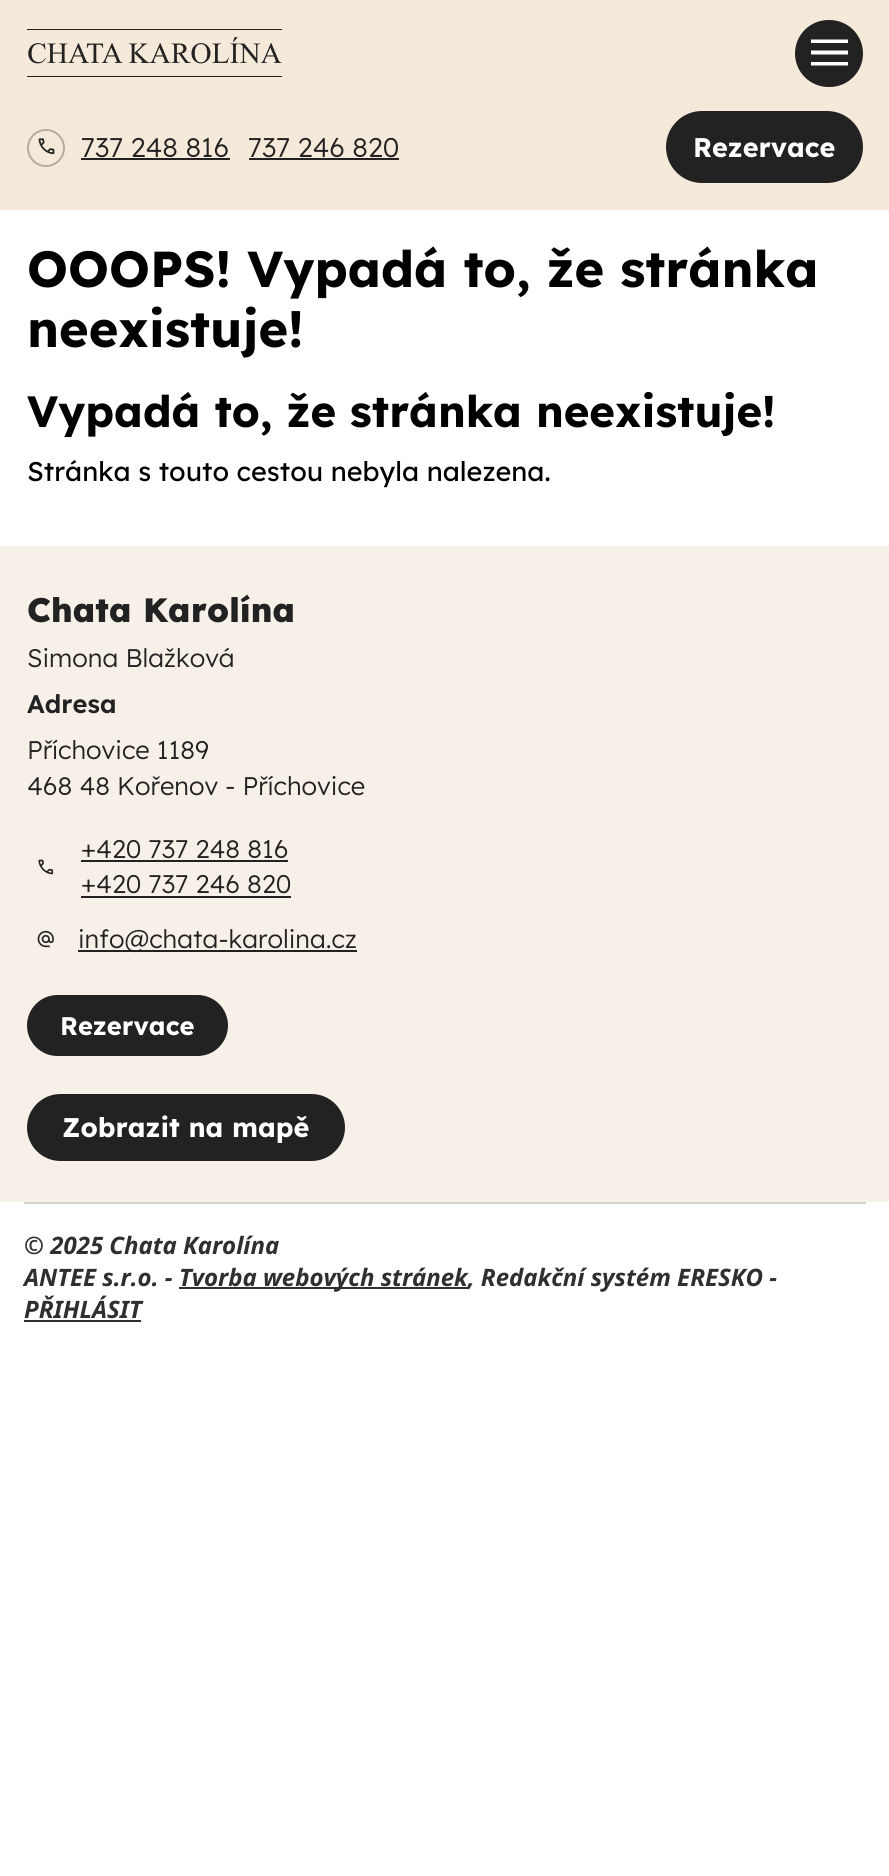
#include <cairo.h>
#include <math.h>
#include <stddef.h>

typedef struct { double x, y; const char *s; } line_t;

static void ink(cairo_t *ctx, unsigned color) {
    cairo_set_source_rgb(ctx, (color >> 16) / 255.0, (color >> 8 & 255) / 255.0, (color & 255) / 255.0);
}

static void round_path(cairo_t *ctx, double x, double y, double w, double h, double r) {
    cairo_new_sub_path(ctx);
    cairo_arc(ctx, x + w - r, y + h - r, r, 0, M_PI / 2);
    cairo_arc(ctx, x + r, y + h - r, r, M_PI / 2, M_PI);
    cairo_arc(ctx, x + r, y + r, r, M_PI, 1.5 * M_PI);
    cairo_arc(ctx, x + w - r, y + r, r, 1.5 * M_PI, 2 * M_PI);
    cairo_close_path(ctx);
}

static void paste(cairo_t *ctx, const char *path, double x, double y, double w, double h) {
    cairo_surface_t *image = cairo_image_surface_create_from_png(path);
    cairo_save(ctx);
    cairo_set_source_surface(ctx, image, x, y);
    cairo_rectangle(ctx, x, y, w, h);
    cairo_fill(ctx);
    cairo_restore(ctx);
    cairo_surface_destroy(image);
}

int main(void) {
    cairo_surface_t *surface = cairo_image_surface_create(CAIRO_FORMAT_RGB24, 889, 1876);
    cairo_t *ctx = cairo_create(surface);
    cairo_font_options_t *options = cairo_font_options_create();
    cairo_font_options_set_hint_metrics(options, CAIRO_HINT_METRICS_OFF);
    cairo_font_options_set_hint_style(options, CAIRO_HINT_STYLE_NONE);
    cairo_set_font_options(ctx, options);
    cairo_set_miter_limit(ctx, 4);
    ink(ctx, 0xFFFFFF);
    cairo_paint(ctx);
    ink(ctx, 0xF5E9D9);
    cairo_rectangle(ctx, 0, 0, 889, 210);
    cairo_fill(ctx);
    ink(ctx, 0x222222);
    round_path(ctx, 795, 20, 68, 67, 33.5);
    cairo_fill(ctx);
    ink(ctx, 0xFFFFFF);
    cairo_new_path(ctx);
    cairo_move_to(ctx, 811, 39.5);
    cairo_line_to(ctx, 811, 43);
    cairo_line_to(ctx, 848, 43);
    cairo_line_to(ctx, 848, 39.5);
    cairo_close_path(ctx);
    cairo_move_to(ctx, 811, 50.5);
    cairo_line_to(ctx, 811, 54.5);
    cairo_line_to(ctx, 848, 54.5);
    cairo_line_to(ctx, 848, 50.5);
    cairo_close_path(ctx);
    cairo_move_to(ctx, 811, 62);
    cairo_line_to(ctx, 811, 65.5);
    cairo_line_to(ctx, 848, 65.5);
    cairo_line_to(ctx, 848, 62);
    cairo_close_path(ctx);
    cairo_fill(ctx);
    paste(ctx, "media/1.png", 27, 29, 255, 48);
    paste(ctx, "media/2.png", 38, 138, 17, 17);
    cairo_arc(ctx, 46, 148, 18, 0, 2 * M_PI);
    ink(ctx, 0xB6ADA2);
    cairo_stroke(ctx);
    cairo_select_font_face(ctx, "Lexend Light", CAIRO_FONT_SLANT_NORMAL, CAIRO_FONT_WEIGHT_NORMAL);
    cairo_set_font_size(ctx, 27);
    ink(ctx, 0x222222);
    cairo_move_to(ctx, 81, 157);
    cairo_show_text(ctx, "737 248 816");
    cairo_rectangle(ctx, 81, 158, 149, 2);
    cairo_fill(ctx);
    cairo_move_to(ctx, 248, 157);
    cairo_show_text(ctx, "737 246 820");
    cairo_rectangle(ctx, 249, 158, 150, 2);
    cairo_fill(ctx);
    round_path(ctx, 666, 111, 197, 72, 36);
    cairo_fill(ctx);
    cairo_select_font_face(ctx, "Lexend", CAIRO_FONT_SLANT_NORMAL, CAIRO_FONT_WEIGHT_BOLD);
    ink(ctx, 0xFFFFFF);
    cairo_move_to(ctx, 693, 157);
    cairo_show_text(ctx, "Rezervace");
    cairo_set_font_size(ctx, 50.5);
    ink(ctx, 0x000000);
    cairo_move_to(ctx, 27, 287);
    cairo_show_text(ctx, "OOOPS! Vypadá to, že stránka");
    cairo_move_to(ctx, 27, 347);
    cairo_show_text(ctx, "neexistuje!");
    cairo_set_font_size(ctx, 43.75);
    cairo_move_to(ctx, 27, 427);
    cairo_show_text(ctx, "Vypadá to, že stránka neexistuje!");
    cairo_select_font_face(ctx, "Lexend", CAIRO_FONT_SLANT_NORMAL, CAIRO_FONT_WEIGHT_NORMAL);
    cairo_set_font_size(ctx, 27);
    cairo_move_to(ctx, 27, 481);
    cairo_show_text(ctx, "Stránka s touto cestou nebyla nalezena.");
    ink(ctx, 0xF6F0E9);
    cairo_rectangle(ctx, 0, 546, 889, 656);
    cairo_fill(ctx);
    cairo_select_font_face(ctx, "Lexend ExtraBold", CAIRO_FONT_SLANT_NORMAL, CAIRO_FONT_WEIGHT_NORMAL);
    cairo_set_font_size(ctx, 33.75);
    ink(ctx, 0x222222);
    cairo_move_to(ctx, 27, 622);
    cairo_show_text(ctx, "Chata Karolína");
    cairo_select_font_face(ctx, "Lexend Light", CAIRO_FONT_SLANT_NORMAL, CAIRO_FONT_WEIGHT_NORMAL);
    cairo_set_font_size(ctx, 25.5);
    cairo_move_to(ctx, 27, 667);
    cairo_show_text(ctx, "Simona Blažková");
    cairo_select_font_face(ctx, "Lexend SemiBold", CAIRO_FONT_SLANT_NORMAL, CAIRO_FONT_WEIGHT_NORMAL);
    cairo_move_to(ctx, 27, 713);
    cairo_show_text(ctx, "Adresa");
    cairo_select_font_face(ctx, "Lexend Light", CAIRO_FONT_SLANT_NORMAL, CAIRO_FONT_WEIGHT_NORMAL);
    {
        static const line_t items[] = {
            {27, 759, "Příchovice 1189"},
            {27, 795, "468 48 Kořenov - Příchovice"},
            {81, 858, "+420 737 248 816"},
        };
        for (size_t i = 0; i < sizeof items / sizeof *items; i++) {
            cairo_move_to(ctx, items[i].x, items[i].y);
            cairo_show_text(ctx, items[i].s);
        }
    }
    cairo_rectangle(ctx, 81, 860, 207, 2);
    cairo_fill(ctx);
    paste(ctx, "media/3.png", 38, 859, 16, 16);
    cairo_move_to(ctx, 81, 893);
    cairo_show_text(ctx, "+420 737 246 820");
    cairo_rectangle(ctx, 81, 896, 210, 2);
    cairo_fill(ctx);
    paste(ctx, "media/4.png", 37, 930, 17, 18);
    cairo_rectangle(ctx, 78, 950, 279, 2);
    cairo_fill(ctx);
    cairo_move_to(ctx, 78, 948);
    cairo_show_text(ctx, "info@chata-karolina.cz");
    round_path(ctx, 27, 995, 201, 61, 30.5);
    cairo_fill(ctx);
    cairo_select_font_face(ctx, "Lexend", CAIRO_FONT_SLANT_NORMAL, CAIRO_FONT_WEIGHT_BOLD);
    ink(ctx, 0xFFFFFF);
    cairo_move_to(ctx, 60, 1035);
    cairo_show_text(ctx, "Rezervace");
    ink(ctx, 0x222222);
    round_path(ctx, 27, 1094, 318, 67, 33.5);
    cairo_fill(ctx);
    cairo_set_font_size(ctx, 27);
    ink(ctx, 0xFFFFFF);
    cairo_move_to(ctx, 62, 1137);
    cairo_show_text(ctx, "Zobrazit na mapě");
    ink(ctx, 0xD2D2D2);
    cairo_rectangle(ctx, 24, 1202, 842, 2);
    cairo_fill(ctx);
    cairo_select_font_face(ctx, "Noto Sans", CAIRO_FONT_SLANT_ITALIC, CAIRO_FONT_WEIGHT_BOLD);
    cairo_set_font_size(ctx, 24);
    ink(ctx, 0x2F2F2F);
    cairo_move_to(ctx, 24, 1254);
    cairo_show_text(ctx, "© 2025 Chata Karolína");
    cairo_move_to(ctx, 24, 1286);
    cairo_show_text(ctx, "ANTEE s.r.o. -");
    cairo_rectangle(ctx, 179, 1287, 289, 2);
    cairo_fill(ctx);
    cairo_move_to(ctx, 179, 1286);
    cairo_show_text(ctx, "Tvorba webových stránek, Redakční systém ERESKO -");
    cairo_move_to(ctx, 24, 1318);
    cairo_show_text(ctx, "PŘIHLÁSIT");
    cairo_rectangle(ctx, 24, 1320, 117, 2);
    cairo_fill(ctx);
    cairo_surface_write_to_png(surface, "image.png");
    cairo_font_options_destroy(options);
    cairo_destroy(ctx);
    cairo_surface_destroy(surface);
    return 0;
}
